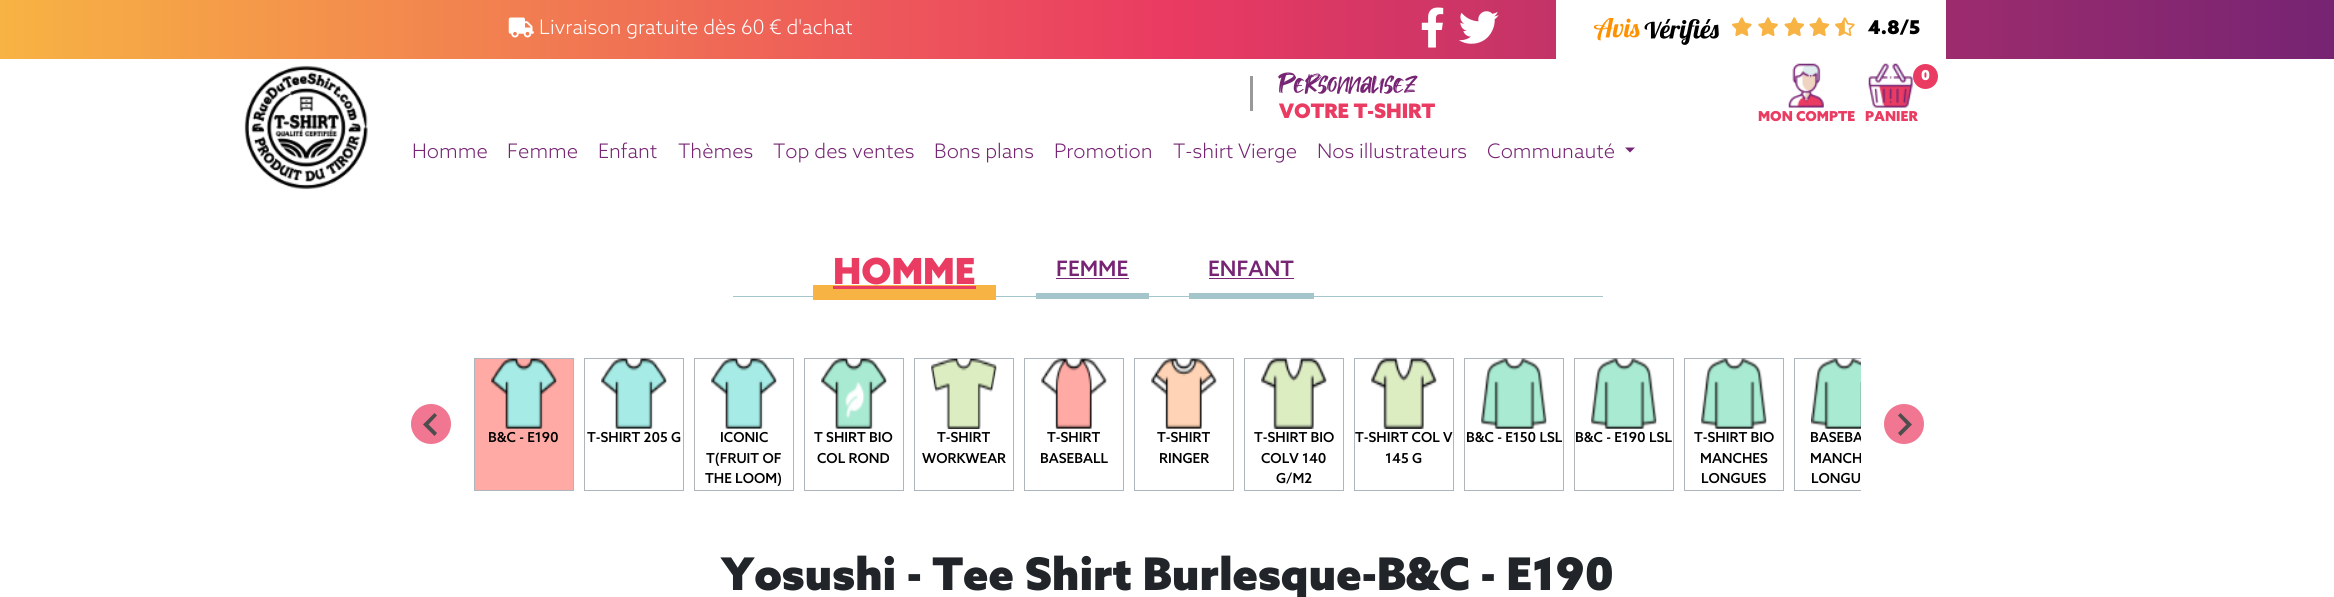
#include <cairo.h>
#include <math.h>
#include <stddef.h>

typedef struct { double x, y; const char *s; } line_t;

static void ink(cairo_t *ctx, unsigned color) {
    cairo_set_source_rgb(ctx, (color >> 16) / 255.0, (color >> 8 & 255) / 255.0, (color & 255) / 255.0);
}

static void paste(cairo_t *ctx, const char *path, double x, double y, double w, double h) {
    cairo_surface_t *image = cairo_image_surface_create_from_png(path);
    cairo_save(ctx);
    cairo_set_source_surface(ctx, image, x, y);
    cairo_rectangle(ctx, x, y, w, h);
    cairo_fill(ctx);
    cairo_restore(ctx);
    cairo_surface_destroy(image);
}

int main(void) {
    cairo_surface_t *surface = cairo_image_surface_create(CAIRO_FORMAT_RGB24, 2334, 597);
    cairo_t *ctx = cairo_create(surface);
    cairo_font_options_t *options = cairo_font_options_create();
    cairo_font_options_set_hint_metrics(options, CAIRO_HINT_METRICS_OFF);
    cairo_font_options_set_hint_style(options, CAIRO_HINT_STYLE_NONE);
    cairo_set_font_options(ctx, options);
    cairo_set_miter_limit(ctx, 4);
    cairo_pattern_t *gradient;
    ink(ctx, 0xFFFFFF);
    cairo_paint(ctx);
    gradient = cairo_pattern_create_linear(0, 29, 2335, 29);
    cairo_pattern_add_color_stop_rgba(gradient, 0, 0.969, 0.702, 0.263, 1);
    cairo_pattern_add_color_stop_rgba(gradient, 0.5, 0.918, 0.231, 0.384, 1);
    cairo_pattern_add_color_stop_rgba(gradient, 1, 0.463, 0.141, 0.451, 1);
    cairo_set_source(ctx, gradient);
    cairo_pattern_destroy(gradient);
    cairo_rectangle(ctx, 0, 0, 2334, 59);
    cairo_fill(ctx);
    paste(ctx, "media/1.png", 508, 17, 26, 21);
    cairo_select_font_face(ctx, "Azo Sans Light", CAIRO_FONT_SLANT_NORMAL, CAIRO_FONT_WEIGHT_NORMAL);
    cairo_set_font_size(ctx, 20);
    ink(ctx, 0xFFFFFF);
    cairo_move_to(ctx, 539, 34);
    cairo_show_text(ctx, "Livraison gratuite dès 60 € d'achat");
    paste(ctx, "media/2.png", 1421, 7, 23, 41);
    paste(ctx, "media/3.png", 1459, 11, 40, 33);
    cairo_rectangle(ctx, 1556, 0, 390, 59);
    cairo_fill(ctx);
    paste(ctx, "media/4.png", 1594, 18, 125, 27);
    paste(ctx, "media/5.png", 1732, 17, 20, 20);
    paste(ctx, "media/6.png", 1758, 17, 20, 20);
    paste(ctx, "media/7.png", 1784, 17, 21, 20);
    paste(ctx, "media/7.png", 1809, 17, 21, 20);
    paste(ctx, "media/8.png", 1835, 17, 20, 20);
    cairo_select_font_face(ctx, "Azo Sans Black", CAIRO_FONT_SLANT_NORMAL, CAIRO_FONT_WEIGHT_NORMAL);
    cairo_set_font_size(ctx, 19);
    ink(ctx, 0x000000);
    cairo_move_to(ctx, 1868, 34);
    cairo_show_text(ctx, "4.8/5");
    paste(ctx, "media/9.png", 244, 65, 124, 125);
    ink(ctx, 0x999999);
    cairo_rectangle(ctx, 1250, 76, 3, 35);
    cairo_fill(ctx);
    cairo_select_font_face(ctx, "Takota", CAIRO_FONT_SLANT_NORMAL, CAIRO_FONT_WEIGHT_NORMAL);
    cairo_set_font_size(ctx, 27.5);
    ink(ctx, 0x762473);
    cairo_move_to(ctx, 1279, 93);
    cairo_show_text(ctx, "Personnalisez");
    cairo_select_font_face(ctx, "Azo Sans Black", CAIRO_FONT_SLANT_NORMAL, CAIRO_FONT_WEIGHT_NORMAL);
    cairo_set_font_size(ctx, 20);
    ink(ctx, 0xEA3B62);
    cairo_move_to(ctx, 1279, 118);
    cairo_show_text(ctx, "VOTRE T-SHIRT");
    paste(ctx, "media/10.png", 1788, 63, 36, 45);
    cairo_set_font_size(ctx, 13.75);
    cairo_move_to(ctx, 1758, 121);
    cairo_show_text(ctx, "MON COMPTE");
    paste(ctx, "media/11.png", 1868, 63, 45, 45);
    cairo_arc(ctx, 1925.5, 76.5, 12.5, 0, 2 * M_PI);
    cairo_fill(ctx);
    ink(ctx, 0xFFFFFF);
    cairo_move_to(ctx, 1921, 80);
    cairo_show_text(ctx, "0");
    ink(ctx, 0xEA3B62);
    cairo_move_to(ctx, 1865, 121);
    cairo_show_text(ctx, "PANIER");
    cairo_select_font_face(ctx, "Azo Sans Light", CAIRO_FONT_SLANT_NORMAL, CAIRO_FONT_WEIGHT_NORMAL);
    cairo_set_font_size(ctx, 20);
    ink(ctx, 0x762473);
    {
        static const line_t items[] = {
            {412, 158, "Homme"},
            {507, 158, "Femme"},
            {598, 158, "Enfant"},
            {678, 158, "Thèmes"},
            {773, 158, "Top des ventes"},
            {934, 158, "Bons plans"},
            {1054, 158, "Promotion"},
            {1173, 158, "T-shirt Vierge"},
            {1317, 158, "Nos illustrateurs"},
            {1487, 158, "Communauté"},
        };
        for (size_t i = 0; i < sizeof items / sizeof *items; i++) {
            cairo_move_to(ctx, items[i].x, items[i].y);
            cairo_show_text(ctx, items[i].s);
        }
    }
    cairo_new_path(ctx);
    cairo_move_to(ctx, 1625, 147.5);
    cairo_line_to(ctx, 1635, 147.5);
    cairo_line_to(ctx, 1630, 152.5);
    cairo_close_path(ctx);
    cairo_fill(ctx);
    ink(ctx, 0xA4C6CB);
    cairo_rectangle(ctx, 733, 296, 870, 1);
    cairo_fill(ctx);
    ink(ctx, 0xF7B343);
    cairo_rectangle(ctx, 813, 285, 183, 15);
    cairo_fill(ctx);
    cairo_select_font_face(ctx, "Azo Sans Black", CAIRO_FONT_SLANT_NORMAL, CAIRO_FONT_WEIGHT_NORMAL);
    cairo_set_font_size(ctx, 36);
    ink(ctx, 0xEA3B62);
    cairo_move_to(ctx, 833, 284);
    cairo_show_text(ctx, "HOMME");
    cairo_rectangle(ctx, 833, 286, 143, 3);
    cairo_fill(ctx);
    ink(ctx, 0xA4C6CB);
    cairo_rectangle(ctx, 1036, 293, 113, 6);
    cairo_fill(ctx);
    cairo_select_font_face(ctx, "Azo Sans Medium", CAIRO_FONT_SLANT_NORMAL, CAIRO_FONT_WEIGHT_NORMAL);
    cairo_set_font_size(ctx, 21.25);
    ink(ctx, 0x762473);
    cairo_move_to(ctx, 1056, 276);
    cairo_show_text(ctx, "FEMME");
    cairo_rectangle(ctx, 1056, 278, 73, 1);
    cairo_fill(ctx);
    ink(ctx, 0xA4C6CB);
    cairo_rectangle(ctx, 1189, 293, 125, 6);
    cairo_fill(ctx);
    ink(ctx, 0x762473);
    cairo_move_to(ctx, 1208, 276);
    cairo_show_text(ctx, "ENFANT");
    cairo_rectangle(ctx, 1209, 278, 85, 1);
    cairo_fill(ctx);
    ink(ctx, 0xF07691);
    cairo_arc(ctx, 431, 424, 20, 0, 2 * M_PI);
    cairo_fill(ctx);
    ink(ctx, 0x4D4D4D);
    cairo_new_path(ctx);
    cairo_move_to(ctx, 434.5, 413);
    cairo_line_to(ctx, 437, 415.5);
    cairo_line_to(ctx, 428.5, 424.5);
    cairo_line_to(ctx, 437, 433);
    cairo_line_to(ctx, 434.5, 436);
    cairo_line_to(ctx, 423, 424.5);
    cairo_close_path(ctx);
    cairo_fill(ctx);
    cairo_save(ctx);
    cairo_rectangle(ctx, 474, 358, 1387, 133);
    cairo_clip(ctx);
    cairo_rectangle(ctx, 1794.5, 358.5, 99, 132);
    ink(ctx, 0xADB5BD);
    cairo_set_line_width(ctx, 1);
    cairo_stroke(ctx);
    cairo_restore(ctx);
    ink(ctx, 0xF07691);
    cairo_arc(ctx, 1904, 424, 20, 0, 2 * M_PI);
    cairo_fill(ctx);
    ink(ctx, 0x4D4D4D);
    cairo_new_path(ctx);
    cairo_move_to(ctx, 1900.5, 413);
    cairo_line_to(ctx, 1898, 415.5);
    cairo_line_to(ctx, 1906.5, 424.5);
    cairo_line_to(ctx, 1898, 433);
    cairo_line_to(ctx, 1900.5, 436);
    cairo_line_to(ctx, 1912, 424.5);
    cairo_close_path(ctx);
    cairo_fill(ctx);
    ink(ctx, 0xFFAAA5);
    cairo_rectangle(ctx, 474.5, 358.5, 99, 132);
    cairo_fill_preserve(ctx);
    ink(ctx, 0xADB5BD);
    cairo_set_line_width(ctx, 1);
    cairo_stroke(ctx);
    paste(ctx, "media/12.png", 491, 357, 66, 72);
    cairo_set_font_size(ctx, 13.75);
    ink(ctx, 0x000000);
    cairo_move_to(ctx, 488, 442);
    cairo_show_text(ctx, "B&C - E190");
    cairo_rectangle(ctx, 584.5, 358.5, 99, 132);
    ink(ctx, 0xADB5BD);
    cairo_stroke(ctx);
    paste(ctx, "media/13.png", 601, 357, 66, 72);
    ink(ctx, 0x000000);
    cairo_move_to(ctx, 587, 442);
    cairo_show_text(ctx, "T-SHIRT 205 G");
    cairo_rectangle(ctx, 694.5, 358.5, 99, 132);
    ink(ctx, 0xADB5BD);
    cairo_stroke(ctx);
    paste(ctx, "media/13.png", 711, 357, 66, 72);
    ink(ctx, 0x000000);
    {
        static const line_t items[] = {
            {720, 442, "ICONIC"},
            {706, 463, "T(FRUIT OF"},
            {705, 483, "THE LOOM)"},
        };
        for (size_t i = 0; i < sizeof items / sizeof *items; i++) {
            cairo_move_to(ctx, items[i].x, items[i].y);
            cairo_show_text(ctx, items[i].s);
        }
    }
    cairo_rectangle(ctx, 804.5, 358.5, 99, 132);
    ink(ctx, 0xADB5BD);
    cairo_stroke(ctx);
    paste(ctx, "media/14.png", 821, 357, 66, 72);
    ink(ctx, 0x000000);
    cairo_move_to(ctx, 814, 442);
    cairo_show_text(ctx, "T SHIRT BIO");
    cairo_move_to(ctx, 817, 463);
    cairo_show_text(ctx, "COL ROND");
    cairo_rectangle(ctx, 914.5, 358.5, 99, 132);
    ink(ctx, 0xADB5BD);
    cairo_stroke(ctx);
    paste(ctx, "media/15.png", 931, 358, 66, 71);
    ink(ctx, 0x000000);
    cairo_move_to(ctx, 937, 442);
    cairo_show_text(ctx, "T-SHIRT");
    cairo_move_to(ctx, 922, 463);
    cairo_show_text(ctx, "WORKWEAR");
    cairo_rectangle(ctx, 1024.5, 358.5, 99, 132);
    ink(ctx, 0xADB5BD);
    cairo_stroke(ctx);
    paste(ctx, "media/16.png", 1041, 357, 66, 72);
    ink(ctx, 0x000000);
    cairo_move_to(ctx, 1047, 442);
    cairo_show_text(ctx, "T-SHIRT");
    cairo_move_to(ctx, 1040, 463);
    cairo_show_text(ctx, "BASEBALL");
    cairo_rectangle(ctx, 1134.5, 358.5, 99, 132);
    ink(ctx, 0xADB5BD);
    cairo_stroke(ctx);
    paste(ctx, "media/17.png", 1151, 357, 66, 72);
    ink(ctx, 0x000000);
    cairo_move_to(ctx, 1157, 442);
    cairo_show_text(ctx, "T-SHIRT");
    cairo_move_to(ctx, 1159, 463);
    cairo_show_text(ctx, "RINGER");
    cairo_rectangle(ctx, 1244.5, 358.5, 99, 132);
    ink(ctx, 0xADB5BD);
    cairo_stroke(ctx);
    paste(ctx, "media/18.png", 1261, 357, 66, 72);
    ink(ctx, 0x000000);
    {
        static const line_t items[] = {
            {1254, 442, "T-SHIRT BIO"},
            {1261, 463, "COLV 140"},
            {1276, 483, "G/M2"},
        };
        for (size_t i = 0; i < sizeof items / sizeof *items; i++) {
            cairo_move_to(ctx, items[i].x, items[i].y);
            cairo_show_text(ctx, items[i].s);
        }
    }
    cairo_rectangle(ctx, 1354.5, 358.5, 99, 132);
    ink(ctx, 0xADB5BD);
    cairo_stroke(ctx);
    paste(ctx, "media/18.png", 1371, 357, 66, 72);
    ink(ctx, 0x000000);
    cairo_move_to(ctx, 1355, 442);
    cairo_show_text(ctx, "T-SHIRT COL V");
    cairo_move_to(ctx, 1385, 463);
    cairo_show_text(ctx, "145 G");
    cairo_rectangle(ctx, 1464.5, 358.5, 99, 132);
    ink(ctx, 0xADB5BD);
    cairo_stroke(ctx);
    paste(ctx, "media/19.png", 1481, 358, 66, 71);
    ink(ctx, 0x000000);
    cairo_move_to(ctx, 1466, 442);
    cairo_show_text(ctx, "B&C - E150 LSL");
    cairo_rectangle(ctx, 1574.5, 358.5, 99, 132);
    ink(ctx, 0xADB5BD);
    cairo_stroke(ctx);
    paste(ctx, "media/19.png", 1591, 358, 66, 71);
    ink(ctx, 0x000000);
    cairo_move_to(ctx, 1575, 442);
    cairo_show_text(ctx, "B&C - E190 LSL");
    cairo_rectangle(ctx, 1684.5, 358.5, 99, 132);
    ink(ctx, 0xADB5BD);
    cairo_stroke(ctx);
    paste(ctx, "media/19.png", 1701, 358, 66, 71);
    ink(ctx, 0x000000);
    {
        static const line_t items[] = {
            {1694, 442, "T-SHIRT BIO"},
            {1700, 463, "MANCHES"},
            {1701, 483, "LONGUES"},
        };
        for (size_t i = 0; i < sizeof items / sizeof *items; i++) {
            cairo_move_to(ctx, items[i].x, items[i].y);
            cairo_show_text(ctx, items[i].s);
        }
    }
    paste(ctx, "media/20.png", 1811, 358, 50, 71);
    cairo_save(ctx);
    cairo_rectangle(ctx, 474, 358, 1387, 133);
    cairo_clip(ctx);
    cairo_move_to(ctx, 1810, 442);
    cairo_show_text(ctx, "BASEBA");
    cairo_move_to(ctx, 1810, 463);
    cairo_show_text(ctx, "MANCH");
    cairo_restore(ctx);
    cairo_move_to(ctx, 1811, 483);
    cairo_show_text(ctx, "LONGU");
    cairo_select_font_face(ctx, "Azo Sans Black", CAIRO_FONT_SLANT_NORMAL, CAIRO_FONT_WEIGHT_NORMAL);
    cairo_set_font_size(ctx, 45);
    ink(ctx, 0x212529);
    cairo_move_to(ctx, 721, 590);
    cairo_show_text(ctx, "Yosushi - Tee Shirt Burlesque-B&C - E190");
    cairo_surface_write_to_png(surface, "image.png");
    cairo_font_options_destroy(options);
    cairo_destroy(ctx);
    cairo_surface_destroy(surface);
    return 0;
}
